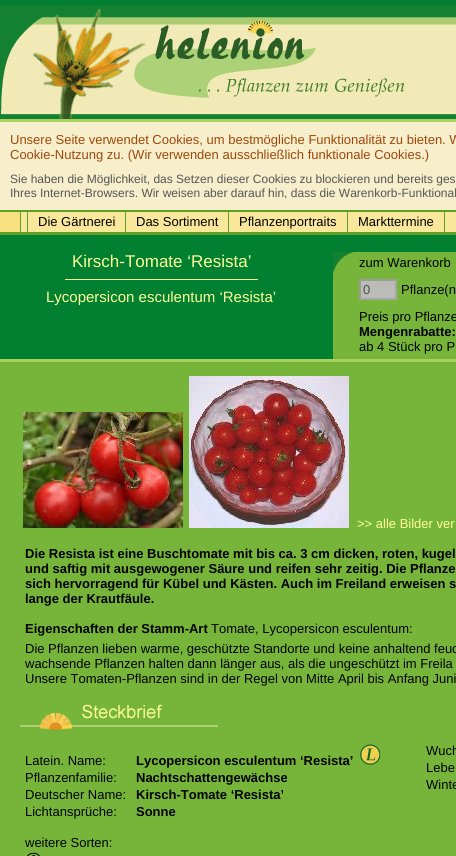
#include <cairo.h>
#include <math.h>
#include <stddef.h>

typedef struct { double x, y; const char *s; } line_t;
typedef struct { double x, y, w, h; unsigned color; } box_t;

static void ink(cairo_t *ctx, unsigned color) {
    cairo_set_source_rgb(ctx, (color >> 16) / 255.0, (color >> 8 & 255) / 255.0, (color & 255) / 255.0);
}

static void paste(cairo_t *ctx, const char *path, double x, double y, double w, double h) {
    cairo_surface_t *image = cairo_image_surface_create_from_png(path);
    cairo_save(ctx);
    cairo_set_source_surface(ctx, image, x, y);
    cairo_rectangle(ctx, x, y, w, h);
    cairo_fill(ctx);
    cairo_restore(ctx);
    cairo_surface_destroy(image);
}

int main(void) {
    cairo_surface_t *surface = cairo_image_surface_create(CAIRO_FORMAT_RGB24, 456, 856);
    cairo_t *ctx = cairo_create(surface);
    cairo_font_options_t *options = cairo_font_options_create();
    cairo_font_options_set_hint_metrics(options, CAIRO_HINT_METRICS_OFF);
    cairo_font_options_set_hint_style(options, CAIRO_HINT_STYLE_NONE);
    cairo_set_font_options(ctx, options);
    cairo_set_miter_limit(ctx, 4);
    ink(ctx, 0x008030);
    cairo_paint(ctx);
    paste(ctx, "media/1.png", 0, 5, 456, 114);
    {
        static const box_t items[] = {
            {0, 212, 20, 20, 0xF7E07F},
            {0, 119, 456, 3, 0xA6D25D},
            {0, 232, 456, 3, 0x5FA126},
            {0, 122, 456, 88, 0xF7EECB},
            {0, 210, 456, 2, 0x5FA126},
        };
        for (size_t i = 0; i < sizeof items / sizeof *items; i++) {
            ink(ctx, items[i].color);
            cairo_rectangle(ctx, items[i].x, items[i].y, items[i].w, items[i].h);
            cairo_fill(ctx);
        }
    }
    cairo_select_font_face(ctx, "Liberation Sans", CAIRO_FONT_SLANT_NORMAL, CAIRO_FONT_WEIGHT_NORMAL);
    cairo_set_font_size(ctx, 13);
    ink(ctx, 0x9E470B);
    cairo_move_to(ctx, 10, 144);
    cairo_show_text(ctx, "Unsere Seite verwendet Cookies, um bestmögliche Funktionalität zu bieten. W");
    cairo_move_to(ctx, 10, 159);
    cairo_show_text(ctx, "Cookie-Nutzung zu. (Wir verwenden ausschließlich funktionale Cookies.)");
    cairo_set_font_size(ctx, 12);
    ink(ctx, 0x555555);
    cairo_move_to(ctx, 10, 183);
    cairo_show_text(ctx, "Sie haben die Möglichkeit, das Setzen dieser Cookies zu blockieren und bereits ges");
    cairo_move_to(ctx, 10, 197);
    cairo_show_text(ctx, "Ihres Internet-Browsers. Wir weisen aber darauf hin, dass die Warenkorb-Funktional");
    {
        static const box_t items[] = {
            {21, 212, 6, 20, 0xF9E79B},
            {27, 212, 1, 20, 0x5FA126},
            {20, 212, 1, 20, 0x5FA126},
            {28, 212, 97, 20, 0xF9E79B},
            {125, 212, 1, 20, 0x5FA126},
        };
        for (size_t i = 0; i < sizeof items / sizeof *items; i++) {
            ink(ctx, items[i].color);
            cairo_rectangle(ctx, items[i].x, items[i].y, items[i].w, items[i].h);
            cairo_fill(ctx);
        }
    }
    cairo_set_font_size(ctx, 13);
    ink(ctx, 0x000000);
    cairo_move_to(ctx, 38, 226);
    cairo_show_text(ctx, "Die Gärtnerei");
    ink(ctx, 0xF9E79B);
    cairo_rectangle(ctx, 126, 212, 102, 20);
    cairo_fill(ctx);
    ink(ctx, 0x5FA126);
    cairo_rectangle(ctx, 228, 212, 1, 20);
    cairo_fill(ctx);
    ink(ctx, 0x000000);
    cairo_move_to(ctx, 136, 226);
    cairo_show_text(ctx, "Das Sortiment");
    ink(ctx, 0xF9E79B);
    cairo_rectangle(ctx, 229, 212, 118, 20);
    cairo_fill(ctx);
    ink(ctx, 0x5FA126);
    cairo_rectangle(ctx, 347, 212, 1, 20);
    cairo_fill(ctx);
    ink(ctx, 0x000000);
    cairo_move_to(ctx, 239, 226);
    cairo_show_text(ctx, "Pflanzenportraits");
    ink(ctx, 0xF9E79B);
    cairo_rectangle(ctx, 348, 212, 96, 20);
    cairo_fill(ctx);
    ink(ctx, 0x5FA126);
    cairo_rectangle(ctx, 444, 212, 1, 20);
    cairo_fill(ctx);
    ink(ctx, 0x000000);
    cairo_move_to(ctx, 358, 226);
    cairo_show_text(ctx, "Markttermine");
    ink(ctx, 0xF9E79B);
    cairo_rectangle(ctx, 445, 212, 11, 20);
    cairo_fill(ctx);
    cairo_set_font_size(ctx, 17);
    ink(ctx, 0xFFFF99);
    cairo_move_to(ctx, 72, 267);
    cairo_show_text(ctx, "Kirsch-Tomate ‘Resista’");
    cairo_rectangle(ctx, 65, 279, 193, 1);
    cairo_fill(ctx);
    cairo_set_font_size(ctx, 15);
    cairo_move_to(ctx, 46, 302);
    cairo_show_text(ctx, "Lycopersicon esculentum ‘Resista’");
    ink(ctx, 0x76B539);
    cairo_rectangle(ctx, 333, 252, 123, 107);
    cairo_fill(ctx);
    paste(ctx, "media/2.png", 333, 252, 21, 21);
    cairo_set_font_size(ctx, 13);
    ink(ctx, 0x000000);
    cairo_move_to(ctx, 359, 267);
    cairo_show_text(ctx, "zum Warenkorb");
    ink(ctx, 0xBBBCB8);
    cairo_rectangle(ctx, 359, 279, 38, 21);
    cairo_fill(ctx);
    ink(ctx, 0x9B9B99);
    cairo_new_path(ctx);
    cairo_move_to(ctx, 359, 279);
    cairo_line_to(ctx, 397, 279);
    cairo_line_to(ctx, 395, 281);
    cairo_line_to(ctx, 361, 281);
    cairo_close_path(ctx);
    cairo_fill(ctx);
    cairo_set_source_rgba(ctx, 0.463, 0.463, 0.463, 0.3);
    cairo_new_path(ctx);
    cairo_move_to(ctx, 397, 279);
    cairo_line_to(ctx, 397, 300);
    cairo_line_to(ctx, 395, 298);
    cairo_line_to(ctx, 395, 281);
    cairo_close_path(ctx);
    cairo_fill(ctx);
    cairo_new_path(ctx);
    cairo_move_to(ctx, 397, 300);
    cairo_line_to(ctx, 359, 300);
    cairo_line_to(ctx, 361, 298);
    cairo_line_to(ctx, 395, 298);
    cairo_close_path(ctx);
    cairo_fill(ctx);
    cairo_set_source_rgba(ctx, 0.31, 0.31, 0.31, 0.3);
    cairo_new_path(ctx);
    cairo_move_to(ctx, 359, 300);
    cairo_line_to(ctx, 359, 279);
    cairo_line_to(ctx, 361, 281);
    cairo_line_to(ctx, 361, 298);
    cairo_close_path(ctx);
    cairo_fill(ctx);
    ink(ctx, 0x4C4C4C);
    cairo_move_to(ctx, 363, 294);
    cairo_show_text(ctx, "0");
    ink(ctx, 0x000000);
    cairo_move_to(ctx, 401, 294);
    cairo_show_text(ctx, "Pflanze(n");
    cairo_move_to(ctx, 359, 321);
    cairo_show_text(ctx, "Preis pro Pflanze");
    cairo_select_font_face(ctx, "Liberation Sans", CAIRO_FONT_SLANT_NORMAL, CAIRO_FONT_WEIGHT_BOLD);
    cairo_move_to(ctx, 359, 336);
    cairo_show_text(ctx, "Mengenrabatte:");
    cairo_select_font_face(ctx, "Liberation Sans", CAIRO_FONT_SLANT_NORMAL, CAIRO_FONT_WEIGHT_NORMAL);
    cairo_move_to(ctx, 359, 351);
    cairo_show_text(ctx, "ab 4 Stück pro P");
    ink(ctx, 0x76B539);
    cairo_rectangle(ctx, 0, 362, 456, 494);
    cairo_fill(ctx);
    ink(ctx, 0xA6D25D);
    cairo_rectangle(ctx, 0, 359, 456, 3);
    cairo_fill(ctx);
    paste(ctx, "media/3.png", 23, 412, 160, 116);
    paste(ctx, "media/4.png", 189, 376, 160, 152);
    ink(ctx, 0xFFFF99);
    cairo_move_to(ctx, 357, 528);
    cairo_show_text(ctx, ">> alle Bilder ver");
    cairo_select_font_face(ctx, "Liberation Sans", CAIRO_FONT_SLANT_NORMAL, CAIRO_FONT_WEIGHT_BOLD);
    ink(ctx, 0x000000);
    {
        static const line_t items[] = {
            {25, 558, "Die Resista ist eine Buschtomate mit bis ca. 3 cm dicken, roten, kugel"},
            {25, 573, "und saftig mit ausgewogener Säure und reifen sehr zeitig. Die Pflanze"},
            {25, 588, "sich hervorragend für Kübel und Kästen. Auch im Freiland erweisen s"},
            {25, 603, "lange der Krautfäule."},
            {25, 633, "Eigenschaften der Stamm-Art"},
        };
        for (size_t i = 0; i < sizeof items / sizeof *items; i++) {
            cairo_move_to(ctx, items[i].x, items[i].y);
            cairo_show_text(ctx, items[i].s);
        }
    }
    cairo_select_font_face(ctx, "Liberation Sans", CAIRO_FONT_SLANT_NORMAL, CAIRO_FONT_WEIGHT_NORMAL);
    {
        static const line_t items[] = {
            {211, 633, "Tomate, Lycopersicon esculentum:"},
            {25, 653, "Die Pflanzen lieben warme, geschützte Standorte und keine anhaltend feuc"},
            {25, 668, "wachsende Pflanzen halten dann länger aus, als die ungeschützt im Freila"},
            {25, 683, "Unsere Tomaten-Pflanzen sind in der Regel von Mitte April bis Anfang Juni"},
        };
        for (size_t i = 0; i < sizeof items / sizeof *items; i++) {
            cairo_move_to(ctx, items[i].x, items[i].y);
            cairo_show_text(ctx, items[i].s);
        }
    }
    paste(ctx, "media/5.png", 20, 704, 198, 26);
    cairo_move_to(ctx, 25, 765);
    cairo_show_text(ctx, "Latein. Name:");
    cairo_select_font_face(ctx, "Liberation Sans", CAIRO_FONT_SLANT_NORMAL, CAIRO_FONT_WEIGHT_BOLD);
    cairo_move_to(ctx, 136, 765);
    cairo_show_text(ctx, "Lycopersicon esculentum ‘Resista’");
    paste(ctx, "media/6.png", 360, 744, 20, 21);
    cairo_select_font_face(ctx, "Liberation Sans", CAIRO_FONT_SLANT_NORMAL, CAIRO_FONT_WEIGHT_NORMAL);
    cairo_move_to(ctx, 25, 782);
    cairo_show_text(ctx, "Pflanzenfamilie:");
    cairo_select_font_face(ctx, "Liberation Sans", CAIRO_FONT_SLANT_NORMAL, CAIRO_FONT_WEIGHT_BOLD);
    cairo_move_to(ctx, 136, 782);
    cairo_show_text(ctx, "Nachtschattengewächse");
    cairo_select_font_face(ctx, "Liberation Sans", CAIRO_FONT_SLANT_NORMAL, CAIRO_FONT_WEIGHT_NORMAL);
    cairo_move_to(ctx, 25, 799);
    cairo_show_text(ctx, "Deutscher Name:");
    cairo_select_font_face(ctx, "Liberation Sans", CAIRO_FONT_SLANT_NORMAL, CAIRO_FONT_WEIGHT_BOLD);
    cairo_move_to(ctx, 136, 799);
    cairo_show_text(ctx, "Kirsch-Tomate ‘Resista’");
    cairo_select_font_face(ctx, "Liberation Sans", CAIRO_FONT_SLANT_NORMAL, CAIRO_FONT_WEIGHT_NORMAL);
    cairo_move_to(ctx, 25, 816);
    cairo_show_text(ctx, "Lichtansprüche:");
    cairo_select_font_face(ctx, "Liberation Sans", CAIRO_FONT_SLANT_NORMAL, CAIRO_FONT_WEIGHT_BOLD);
    cairo_move_to(ctx, 136, 816);
    cairo_show_text(ctx, "Sonne");
    cairo_select_font_face(ctx, "Liberation Sans", CAIRO_FONT_SLANT_NORMAL, CAIRO_FONT_WEIGHT_NORMAL);
    {
        static const line_t items[] = {
            {426, 755, "Wuch"},
            {426, 772, "Lebe"},
            {426, 789, "Winte"},
            {25, 847, "weitere Sorten:"},
        };
        for (size_t i = 0; i < sizeof items / sizeof *items; i++) {
            cairo_move_to(ctx, items[i].x, items[i].y);
            cairo_show_text(ctx, items[i].s);
        }
    }
    paste(ctx, "media/7.png", 27, 852, 13, 4);
    cairo_surface_write_to_png(surface, "image.png");
    cairo_font_options_destroy(options);
    cairo_destroy(ctx);
    cairo_surface_destroy(surface);
    return 0;
}
